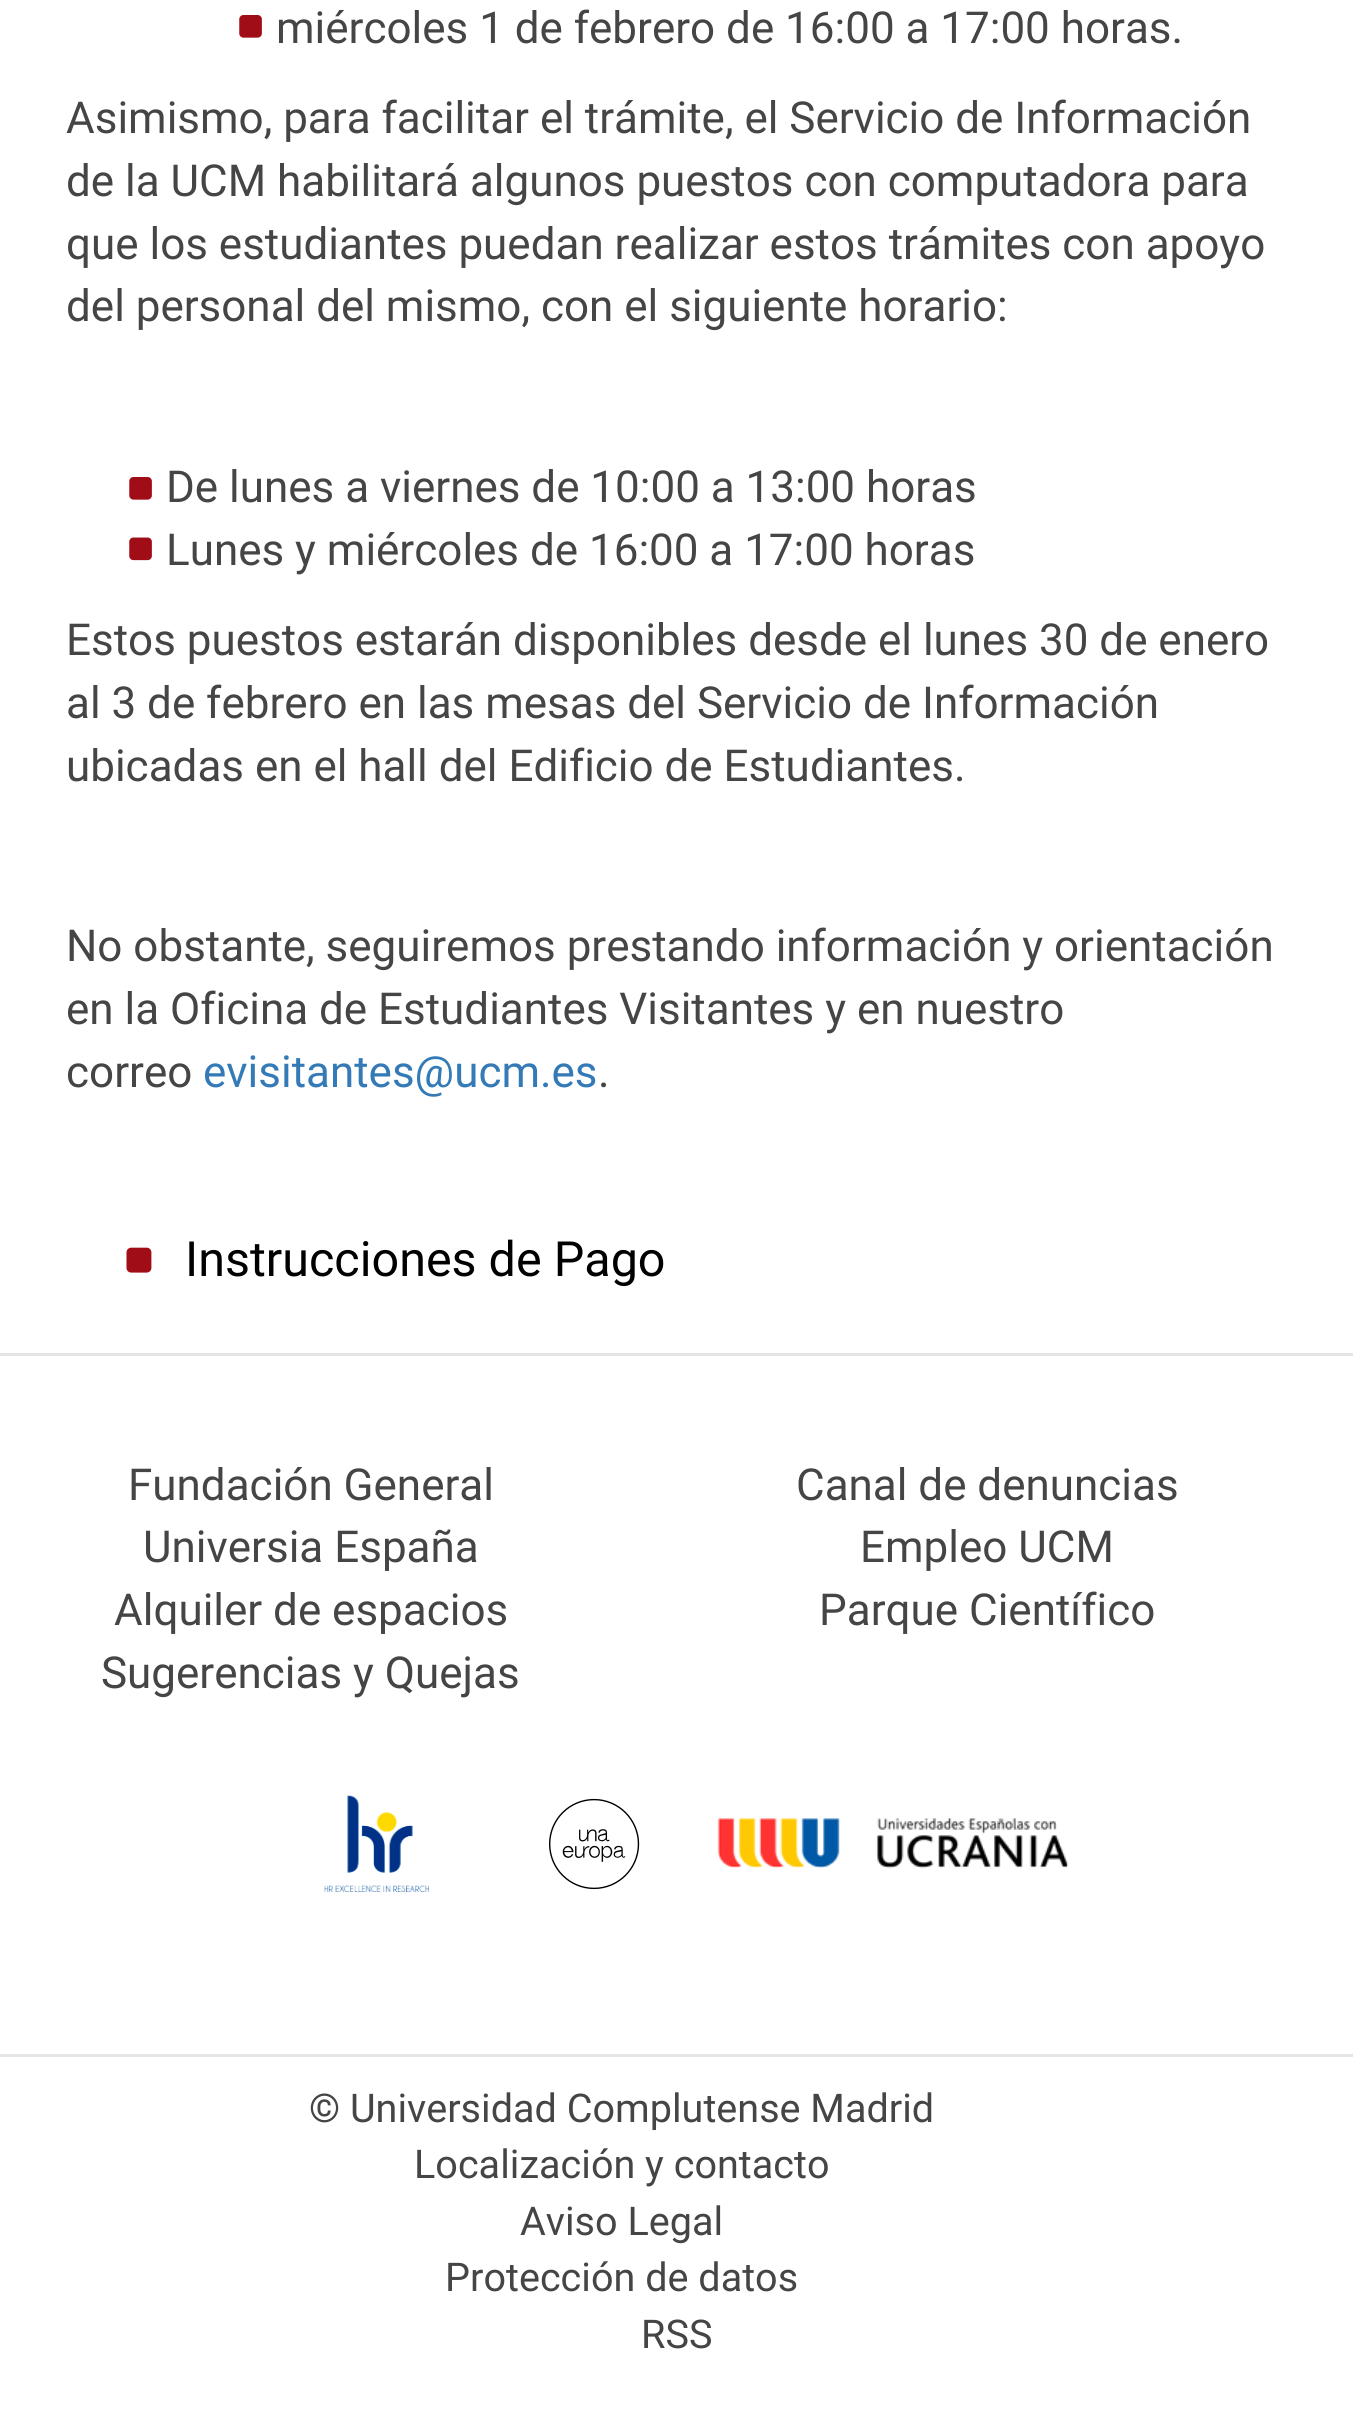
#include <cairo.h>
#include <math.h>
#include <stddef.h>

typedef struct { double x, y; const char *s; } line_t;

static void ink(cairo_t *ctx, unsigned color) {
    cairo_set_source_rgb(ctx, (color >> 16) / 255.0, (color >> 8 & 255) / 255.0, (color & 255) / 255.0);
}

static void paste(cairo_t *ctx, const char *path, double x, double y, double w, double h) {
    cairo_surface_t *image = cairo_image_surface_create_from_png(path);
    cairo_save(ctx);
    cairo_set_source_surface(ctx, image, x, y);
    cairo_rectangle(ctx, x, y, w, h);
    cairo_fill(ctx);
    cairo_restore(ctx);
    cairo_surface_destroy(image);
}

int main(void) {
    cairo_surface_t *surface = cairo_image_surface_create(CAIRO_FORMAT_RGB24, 1353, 2434);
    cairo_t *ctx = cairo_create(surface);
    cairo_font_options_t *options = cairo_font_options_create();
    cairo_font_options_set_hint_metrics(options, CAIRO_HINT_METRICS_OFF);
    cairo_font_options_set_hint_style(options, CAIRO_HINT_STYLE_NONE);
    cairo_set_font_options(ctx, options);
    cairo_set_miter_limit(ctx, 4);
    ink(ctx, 0xFFFFFF);
    cairo_paint(ctx);
    paste(ctx, "media/1.png", 239, 15, 23, 23);
    cairo_select_font_face(ctx, "Roboto", CAIRO_FONT_SLANT_NORMAL, CAIRO_FONT_WEIGHT_NORMAL);
    cairo_set_font_size(ctx, 44);
    ink(ctx, 0x454545);
    {
        static const line_t items[] = {
            {276, 43, "miércoles 1 de febrero de 16:00 a 17:00 horas."},
            {66, 133, "Asimismo, para facilitar el trámite, el Servicio de Información"},
            {66, 196, "de la UCM habilitará algunos puestos con computadora para"},
            {66, 259, "que los estudiantes puedan realizar estos trámites con apoyo"},
            {66, 321, "del personal del mismo, con el siguiente horario:"},
        };
        for (size_t i = 0; i < sizeof items / sizeof *items; i++) {
            cairo_move_to(ctx, items[i].x, items[i].y);
            cairo_show_text(ctx, items[i].s);
        }
    }
    paste(ctx, "media/1.png", 129, 477, 23, 23);
    cairo_move_to(ctx, 166, 502);
    cairo_show_text(ctx, "De lunes a viernes de 10:00 a 13:00 horas");
    paste(ctx, "media/2.png", 129, 537, 23, 24);
    {
        static const line_t items[] = {
            {166, 565, "Lunes y miércoles de 16:00 a 17:00 horas"},
            {66, 655, "Estos puestos estarán disponibles desde el lunes 30 de enero"},
            {66, 718, "al 3 de febrero en las mesas del Servicio de Información"},
            {66, 781, "ubicadas en el hall del Edificio de Estudiantes."},
            {66, 961, "No obstante, seguiremos prestando información y orientación"},
            {66, 1024, "en la Oficina de Estudiantes Visitantes y en nuestro"},
            {66, 1087, "correo"},
        };
        for (size_t i = 0; i < sizeof items / sizeof *items; i++) {
            cairo_move_to(ctx, items[i].x, items[i].y);
            cairo_show_text(ctx, items[i].s);
        }
    }
    ink(ctx, 0x337AB7);
    cairo_move_to(ctx, 203, 1087);
    cairo_show_text(ctx, "evisitantes@ucm.es");
    ink(ctx, 0x454545);
    cairo_move_to(ctx, 598, 1087);
    cairo_show_text(ctx, ".");
    paste(ctx, "media/3.png", 126, 1247, 26, 26);
    cairo_set_font_size(ctx, 48.5);
    ink(ctx, 0x000000);
    cairo_move_to(ctx, 185, 1276);
    cairo_show_text(ctx, "Instrucciones de Pago");
    ink(ctx, 0xE5E5E5);
    cairo_rectangle(ctx, 0, 1353, 1353, 3);
    cairo_fill(ctx);
    cairo_set_font_size(ctx, 44);
    ink(ctx, 0x454545);
    {
        static const line_t items[] = {
            {128, 1500, "Fundación General"},
            {796, 1500, "Canal de denuncias"},
            {143, 1562, "Universia España"},
            {860, 1562, "Empleo UCM"},
            {114, 1625, "Alquiler de espacios"},
            {819, 1625, "Parque Científico"},
            {101, 1688, "Sugerencias y Quejas"},
        };
        for (size_t i = 0; i < sizeof items / sizeof *items; i++) {
            cairo_move_to(ctx, items[i].x, items[i].y);
            cairo_show_text(ctx, items[i].s);
        }
    }
    paste(ctx, "media/4.png", 324, 1795, 105, 97);
    paste(ctx, "media/5.png", 549, 1798, 91, 92);
    paste(ctx, "media/6.png", 717, 1818, 352, 51);
    ink(ctx, 0xE5E5E5);
    cairo_rectangle(ctx, 0, 2054, 1353, 3);
    cairo_fill(ctx);
    cairo_set_font_size(ctx, 39.6);
    ink(ctx, 0x454545);
    {
        static const line_t items[] = {
            {309, 2122, "© Universidad Complutense Madrid"},
            {414, 2178, "Localización y contacto"},
            {520, 2235, "Aviso Legal"},
            {445, 2291, "Protección de datos"},
            {641, 2348, "RSS"},
        };
        for (size_t i = 0; i < sizeof items / sizeof *items; i++) {
            cairo_move_to(ctx, items[i].x, items[i].y);
            cairo_show_text(ctx, items[i].s);
        }
    }
    cairo_surface_write_to_png(surface, "image.png");
    cairo_font_options_destroy(options);
    cairo_destroy(ctx);
    cairo_surface_destroy(surface);
    return 0;
}
